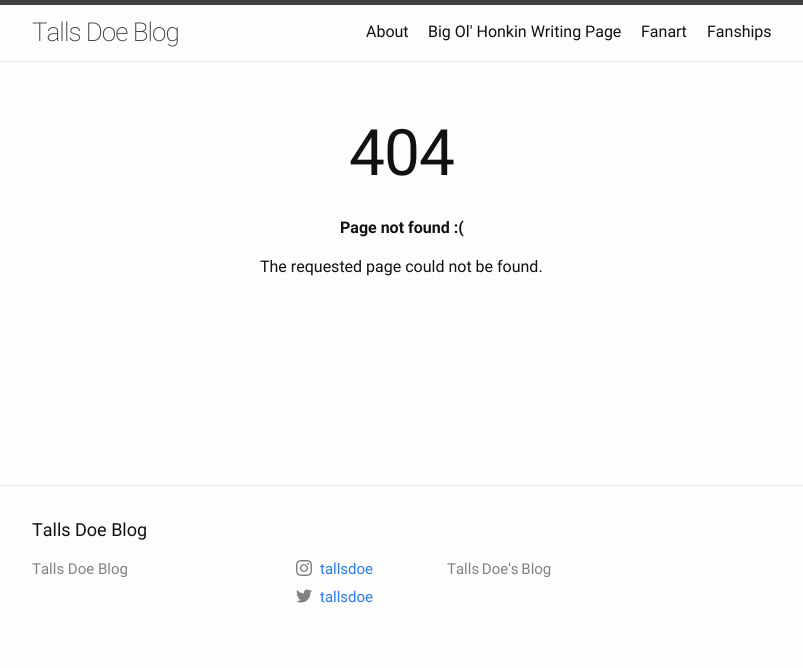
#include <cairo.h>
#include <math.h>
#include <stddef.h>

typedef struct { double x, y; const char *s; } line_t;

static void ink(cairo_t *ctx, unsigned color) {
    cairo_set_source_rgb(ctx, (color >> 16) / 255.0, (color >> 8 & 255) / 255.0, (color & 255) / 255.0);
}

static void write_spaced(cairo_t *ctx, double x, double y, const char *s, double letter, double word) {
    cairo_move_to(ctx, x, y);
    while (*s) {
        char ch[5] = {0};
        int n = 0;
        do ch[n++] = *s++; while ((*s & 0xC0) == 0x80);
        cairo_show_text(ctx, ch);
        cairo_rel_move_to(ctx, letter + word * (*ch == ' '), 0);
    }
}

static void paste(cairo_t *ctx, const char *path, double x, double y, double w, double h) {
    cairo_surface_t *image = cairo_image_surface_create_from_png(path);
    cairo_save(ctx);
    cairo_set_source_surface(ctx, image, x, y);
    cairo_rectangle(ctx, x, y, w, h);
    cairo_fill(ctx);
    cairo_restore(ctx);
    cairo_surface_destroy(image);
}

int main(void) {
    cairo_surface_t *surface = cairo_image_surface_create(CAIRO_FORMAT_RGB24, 803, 668);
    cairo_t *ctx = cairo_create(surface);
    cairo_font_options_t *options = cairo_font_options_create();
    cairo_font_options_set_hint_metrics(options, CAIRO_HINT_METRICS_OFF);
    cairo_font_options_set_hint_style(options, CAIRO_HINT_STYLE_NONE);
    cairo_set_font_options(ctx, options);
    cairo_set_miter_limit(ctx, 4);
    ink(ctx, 0xFDFDFD);
    cairo_paint(ctx);
    ink(ctx, 0x424242);
    cairo_rectangle(ctx, 0, 0, 803, 5);
    cairo_fill(ctx);
    ink(ctx, 0xE8E8E8);
    cairo_rectangle(ctx, 0, 61, 803, 1);
    cairo_fill(ctx);
    cairo_select_font_face(ctx, "Roboto ExtraLight", CAIRO_FONT_SLANT_NORMAL, CAIRO_FONT_WEIGHT_NORMAL);
    cairo_set_font_size(ctx, 26);
    ink(ctx, 0x424242);
    write_spaced(ctx, 32, 41, "Talls Doe Blog", -1, 0);
    cairo_select_font_face(ctx, "Roboto", CAIRO_FONT_SLANT_NORMAL, CAIRO_FONT_WEIGHT_NORMAL);
    cairo_set_font_size(ctx, 16);
    ink(ctx, 0x111111);
    {
        static const line_t items[] = {
            {366, 37, "About"},
            {428, 37, "Big Ol' Honkin Writing Page"},
            {641, 37, "Fanart"},
            {707, 37, "Fanships"},
        };
        for (size_t i = 0; i < sizeof items / sizeof *items; i++) {
            cairo_move_to(ctx, items[i].x, items[i].y);
            cairo_show_text(ctx, items[i].s);
        }
    }
    cairo_set_font_size(ctx, 64);
    write_spaced(ctx, 349, 175, "404", -1, 0);
    cairo_select_font_face(ctx, "Roboto", CAIRO_FONT_SLANT_NORMAL, CAIRO_FONT_WEIGHT_BOLD);
    cairo_set_font_size(ctx, 16);
    cairo_move_to(ctx, 340, 233);
    cairo_show_text(ctx, "Page not found :(");
    cairo_select_font_face(ctx, "Roboto", CAIRO_FONT_SLANT_NORMAL, CAIRO_FONT_WEIGHT_NORMAL);
    cairo_move_to(ctx, 260, 272);
    cairo_show_text(ctx, "The requested page could not be found.");
    ink(ctx, 0xE8E8E8);
    cairo_rectangle(ctx, 0, 485, 803, 1);
    cairo_fill(ctx);
    cairo_set_font_size(ctx, 18);
    ink(ctx, 0x111111);
    cairo_move_to(ctx, 32, 536);
    cairo_show_text(ctx, "Talls Doe Blog");
    cairo_set_font_size(ctx, 15);
    ink(ctx, 0x828282);
    cairo_move_to(ctx, 32, 574);
    cairo_show_text(ctx, "Talls Doe Blog");
    paste(ctx, "media/1.png", 296, 560, 16, 16);
    ink(ctx, 0x2A7AE2);
    cairo_move_to(ctx, 320, 574);
    cairo_show_text(ctx, "tallsdoe");
    paste(ctx, "media/2.png", 296, 589, 16, 14);
    cairo_move_to(ctx, 320, 602);
    cairo_show_text(ctx, "tallsdoe");
    ink(ctx, 0x828282);
    write_spaced(ctx, 447, 574, "Talls Doe's Blog", 0, -1);
    cairo_surface_write_to_png(surface, "image.png");
    cairo_font_options_destroy(options);
    cairo_destroy(ctx);
    cairo_surface_destroy(surface);
    return 0;
}
